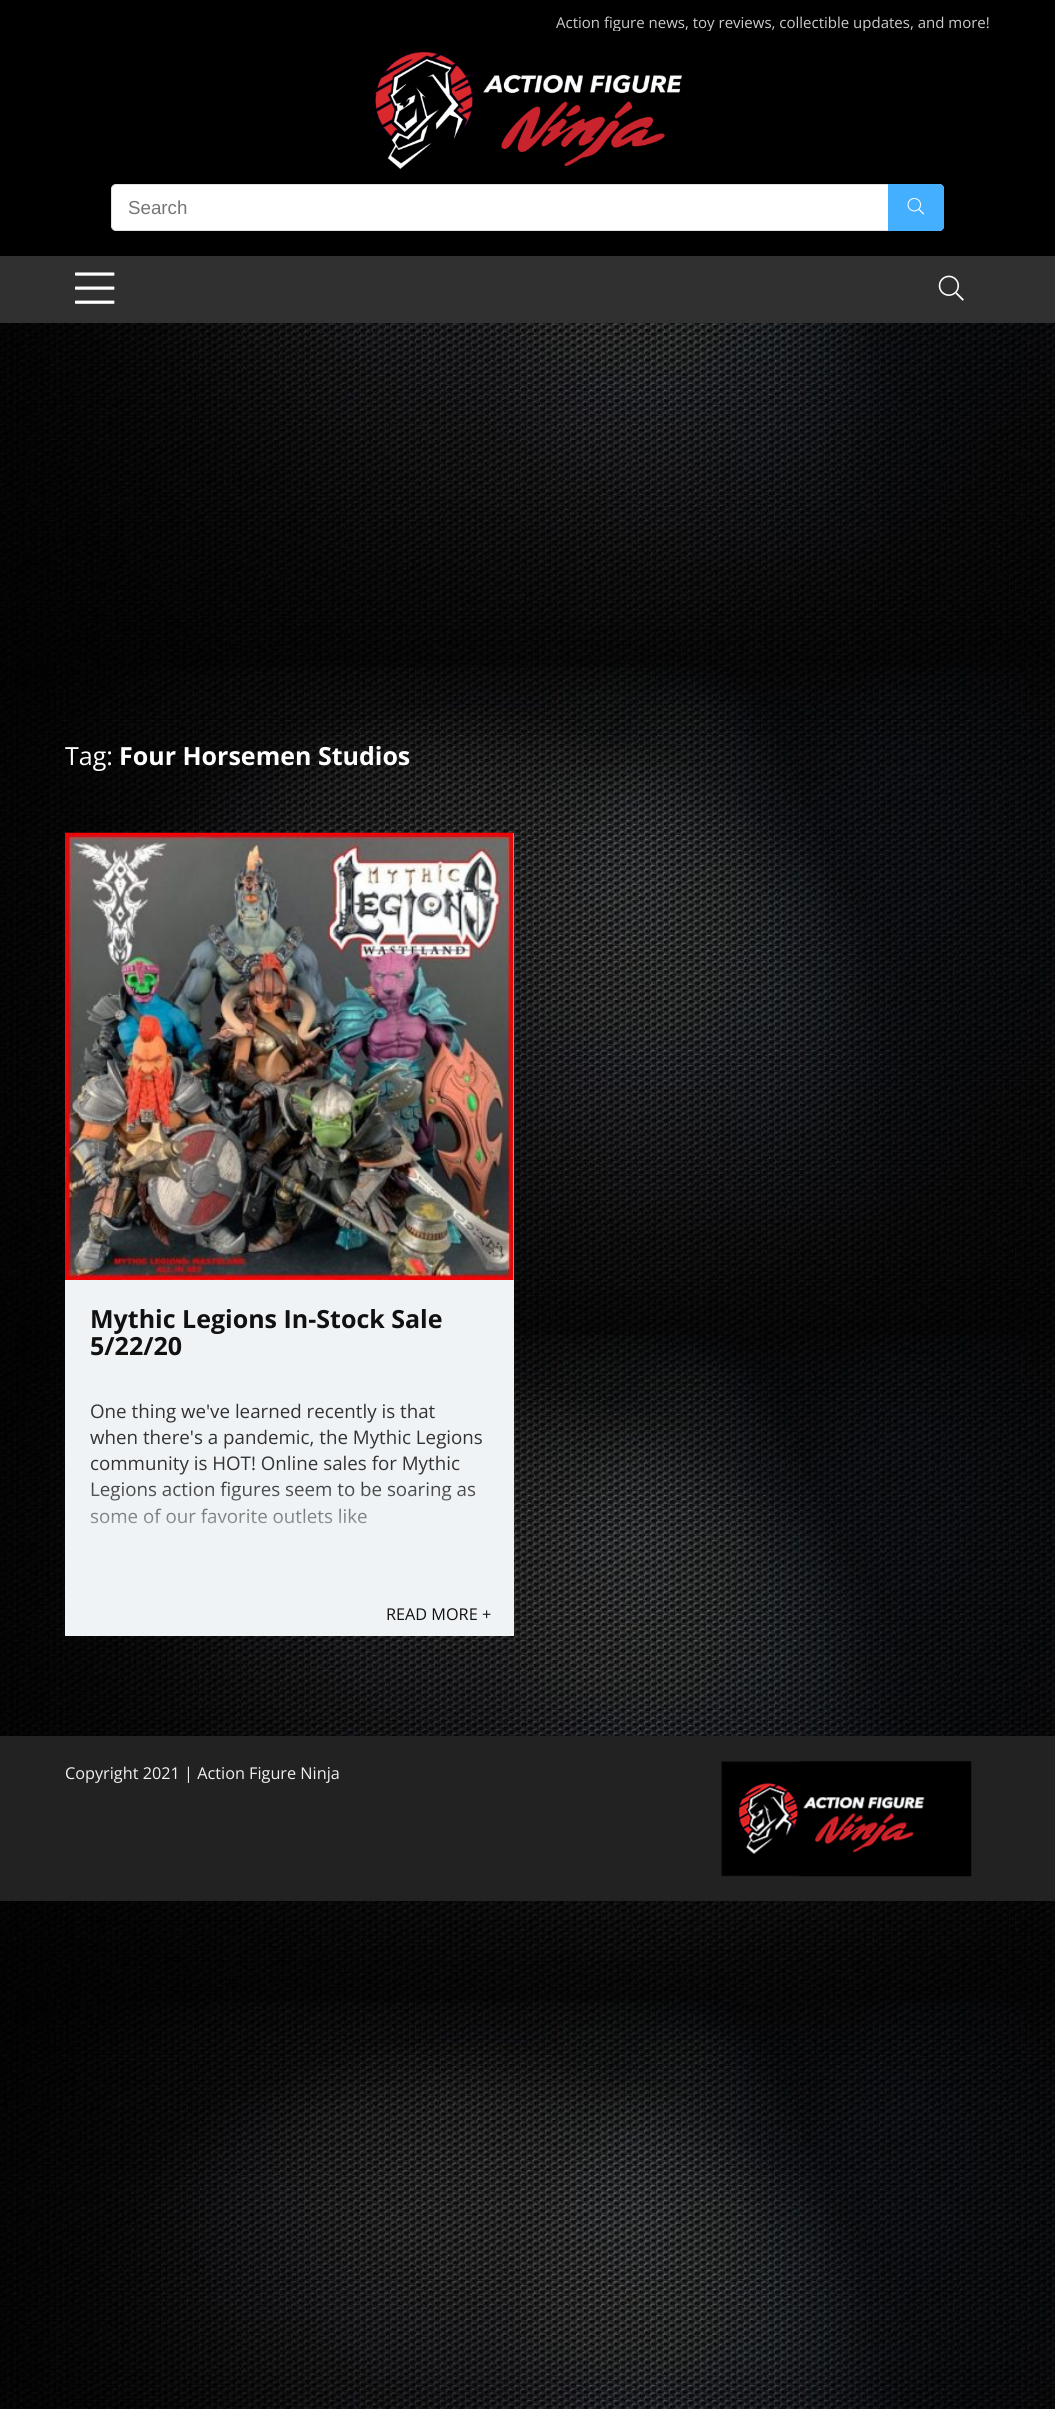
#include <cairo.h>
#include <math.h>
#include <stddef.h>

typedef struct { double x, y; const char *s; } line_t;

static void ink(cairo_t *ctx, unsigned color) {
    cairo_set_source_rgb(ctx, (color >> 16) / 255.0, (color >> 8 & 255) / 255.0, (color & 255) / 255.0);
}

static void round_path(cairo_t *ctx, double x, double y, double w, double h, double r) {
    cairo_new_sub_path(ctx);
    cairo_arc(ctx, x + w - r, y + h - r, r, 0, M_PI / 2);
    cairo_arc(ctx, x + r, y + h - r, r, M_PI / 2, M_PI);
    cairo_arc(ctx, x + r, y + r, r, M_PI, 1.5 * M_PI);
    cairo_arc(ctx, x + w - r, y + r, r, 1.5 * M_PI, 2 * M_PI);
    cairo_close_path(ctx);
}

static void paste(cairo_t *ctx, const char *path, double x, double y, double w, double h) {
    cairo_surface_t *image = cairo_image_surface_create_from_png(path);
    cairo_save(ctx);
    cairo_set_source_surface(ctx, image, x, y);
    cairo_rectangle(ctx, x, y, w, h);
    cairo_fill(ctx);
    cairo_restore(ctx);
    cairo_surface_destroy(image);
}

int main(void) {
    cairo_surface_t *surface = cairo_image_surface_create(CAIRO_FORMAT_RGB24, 1055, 2409);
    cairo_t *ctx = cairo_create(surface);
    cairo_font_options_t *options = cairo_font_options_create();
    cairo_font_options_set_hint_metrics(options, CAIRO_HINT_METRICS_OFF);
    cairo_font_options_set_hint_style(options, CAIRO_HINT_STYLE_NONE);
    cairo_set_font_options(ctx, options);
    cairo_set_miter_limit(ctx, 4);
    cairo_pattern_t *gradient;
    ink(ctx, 0xFFFFFF);
    cairo_paint(ctx);
    paste(ctx, "media/1.png", 0, 323, 1055, 2086);
    ink(ctx, 0x000000);
    cairo_rectangle(ctx, 0, 0, 1055, 256);
    cairo_fill(ctx);
    cairo_save(ctx);
    cairo_rectangle(ctx, 556, 13, 434, 18);
    cairo_clip(ctx);
    cairo_select_font_face(ctx, "Open Sans", CAIRO_FONT_SLANT_NORMAL, CAIRO_FONT_WEIGHT_NORMAL);
    cairo_set_font_size(ctx, 15);
    ink(ctx, 0xCCCCCC);
    cairo_move_to(ctx, 556, 28);
    cairo_show_text(ctx, "Action figure news, toy reviews, collectible updates, and more!");
    cairo_restore(ctx);
    paste(ctx, "media/2.png", 371, 51, 311, 119);
    ink(ctx, 0xFFFFFF);
    round_path(ctx, 111.5, 184.5, 832, 46, 4.5);
    cairo_fill_preserve(ctx);
    ink(ctx, 0xE1E1E1);
    cairo_set_line_width(ctx, 1);
    cairo_stroke(ctx);
    cairo_select_font_face(ctx, "Liberation Sans", CAIRO_FONT_SLANT_NORMAL, CAIRO_FONT_WEIGHT_NORMAL);
    cairo_set_font_size(ctx, 18.75);
    ink(ctx, 0x757575);
    cairo_move_to(ctx, 128, 214);
    cairo_show_text(ctx, "Search");
    ink(ctx, 0x44AEFF);
    cairo_new_path(ctx);
    cairo_move_to(ctx, 888, 184);
    cairo_line_to(ctx, 939, 184);
    cairo_curve_to(ctx, 942, 184, 944, 186, 944, 189);
    cairo_line_to(ctx, 944, 226);
    cairo_curve_to(ctx, 944, 229, 942, 231, 939, 231);
    cairo_line_to(ctx, 888, 231);
    cairo_close_path(ctx);
    cairo_fill(ctx);
    paste(ctx, "media/3.png", 907, 197, 18, 18);
    ink(ctx, 0x303030);
    cairo_rectangle(ctx, 0, 256, 1055, 67);
    cairo_fill(ctx);
    paste(ctx, "media/4.png", 75, 272, 40, 32);
    paste(ctx, "media/5.png", 938, 275, 26, 26);
    cairo_select_font_face(ctx, "Open Sans", CAIRO_FONT_SLANT_NORMAL, CAIRO_FONT_WEIGHT_NORMAL);
    cairo_set_font_size(ctx, 25);
    ink(ctx, 0xFFFFFF);
    cairo_move_to(ctx, 65, 765);
    cairo_show_text(ctx, "Tag:");
    cairo_select_font_face(ctx, "Open Sans", CAIRO_FONT_SLANT_NORMAL, CAIRO_FONT_WEIGHT_BOLD);
    cairo_move_to(ctx, 119, 765);
    cairo_show_text(ctx, "Four Horsemen Studios");
    cairo_rectangle(ctx, 513, 833, 1, 447);
    cairo_fill(ctx);
    paste(ctx, "media/6.png", 65, 832, 449, 448);
    ink(ctx, 0xEFF3F6);
    cairo_rectangle(ctx, 65, 1280, 449, 356);
    cairo_fill(ctx);
    ink(ctx, 0x111111);
    cairo_move_to(ctx, 90, 1328);
    cairo_show_text(ctx, "Mythic Legions In-Stock Sale");
    cairo_move_to(ctx, 90, 1355);
    cairo_show_text(ctx, "5/22/20");
    cairo_select_font_face(ctx, "Open Sans", CAIRO_FONT_SLANT_NORMAL, CAIRO_FONT_WEIGHT_NORMAL);
    cairo_set_font_size(ctx, 18.75);
    ink(ctx, 0x333333);
    {
        static const line_t items[] = {
            {90, 1418, "One thing we've learned recently is that"},
            {90, 1444, "when there's a pandemic, the Mythic Legions"},
            {90, 1470, "community is HOT! Online sales for Mythic"},
            {90, 1496, "Legions action figures seem to be soaring as"},
            {90, 1523, "some of our favorite outlets like"},
        };
        for (size_t i = 0; i < sizeof items / sizeof *items; i++) {
            cairo_move_to(ctx, items[i].x, items[i].y);
            cairo_show_text(ctx, items[i].s);
        }
    }
    gradient = cairo_pattern_create_linear(289, 1480, 289, 1568);
    cairo_pattern_add_color_stop_rgba(gradient, 0, 0.937, 0.953, 0.965, 0);
    cairo_pattern_add_color_stop_rgba(gradient, 1, 0.937, 0.953, 0.965, 1);
    cairo_set_source(ctx, gradient);
    cairo_pattern_destroy(gradient);
    cairo_rectangle(ctx, 91, 1482, 385, 42);
    cairo_fill(ctx);
    cairo_set_font_size(ctx, 16.25);
    ink(ctx, 0x111111);
    cairo_move_to(ctx, 386, 1620);
    cairo_show_text(ctx, "READ MORE +");
    ink(ctx, 0x222222);
    cairo_rectangle(ctx, 0, 1736, 1055, 165);
    cairo_fill(ctx);
    ink(ctx, 0xF1F1F1);
    cairo_move_to(ctx, 65, 1779);
    cairo_show_text(ctx, "Copyright 2021 | Action Figure Ninja");
    paste(ctx, "media/7.png", 721, 1761, 251, 116);
    cairo_surface_write_to_png(surface, "image.png");
    cairo_font_options_destroy(options);
    cairo_destroy(ctx);
    cairo_surface_destroy(surface);
    return 0;
}
